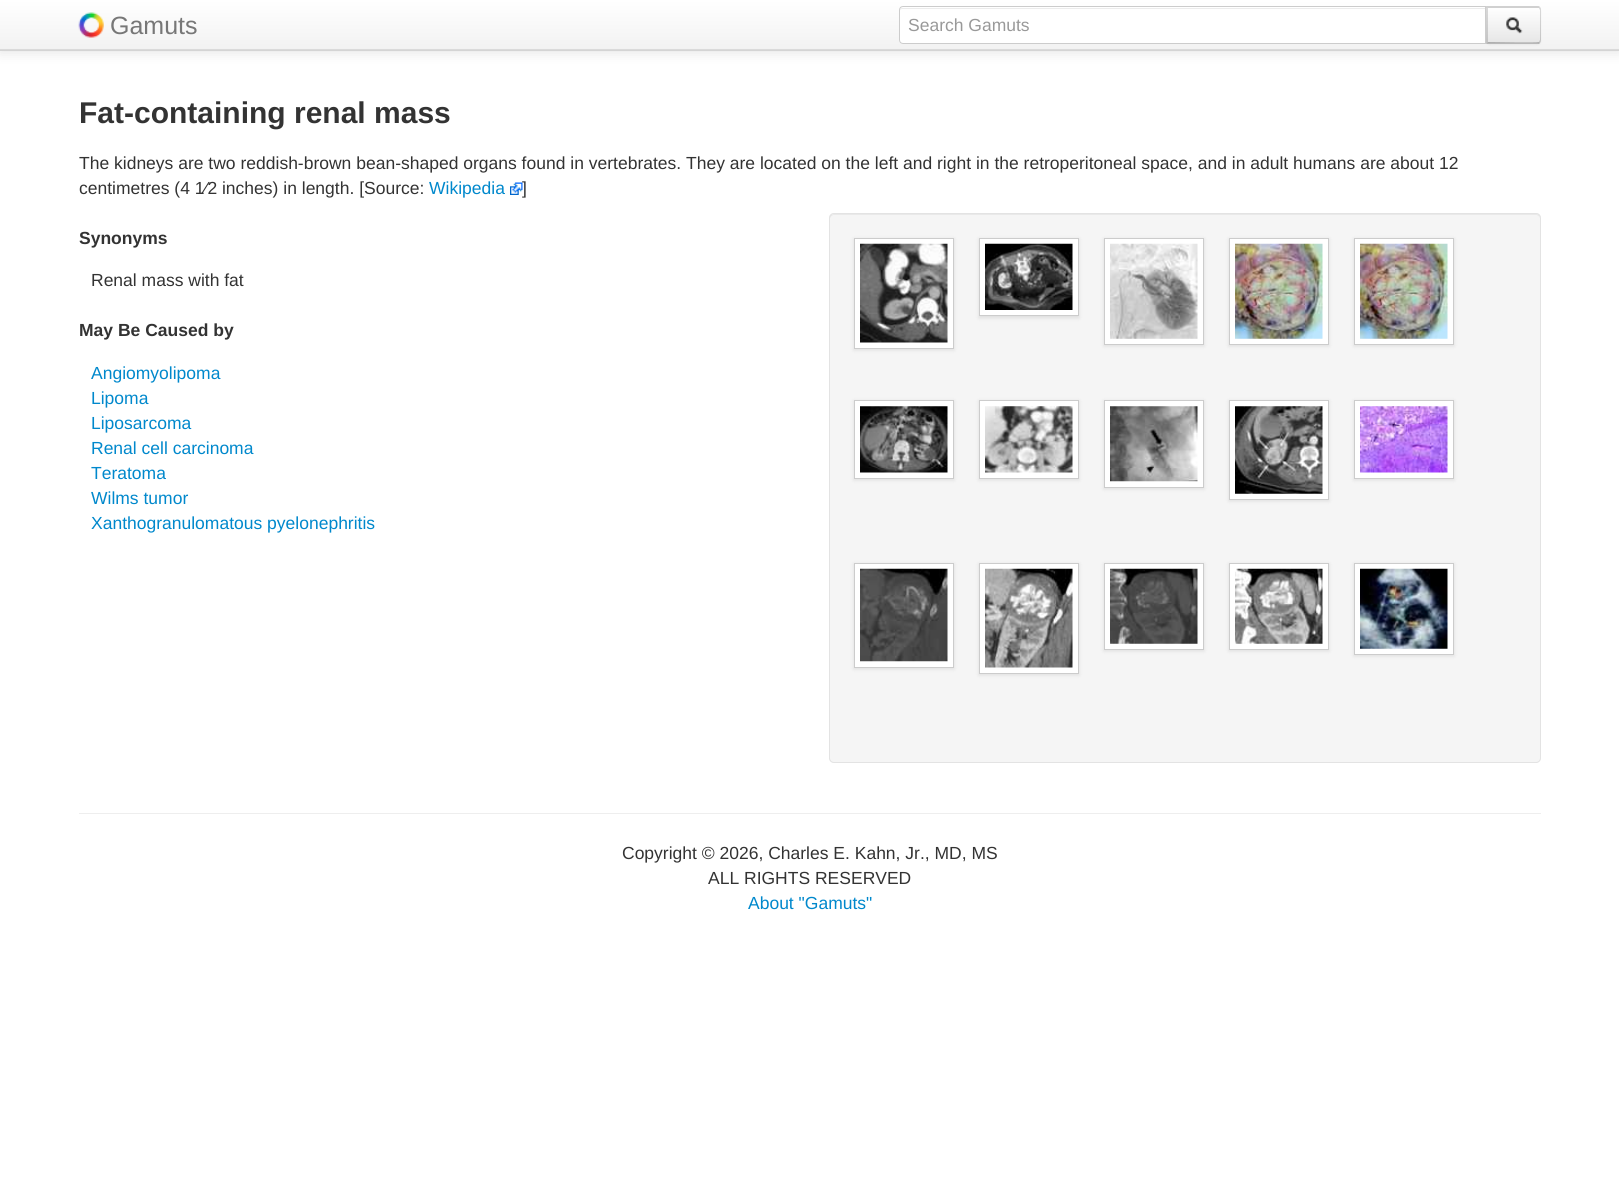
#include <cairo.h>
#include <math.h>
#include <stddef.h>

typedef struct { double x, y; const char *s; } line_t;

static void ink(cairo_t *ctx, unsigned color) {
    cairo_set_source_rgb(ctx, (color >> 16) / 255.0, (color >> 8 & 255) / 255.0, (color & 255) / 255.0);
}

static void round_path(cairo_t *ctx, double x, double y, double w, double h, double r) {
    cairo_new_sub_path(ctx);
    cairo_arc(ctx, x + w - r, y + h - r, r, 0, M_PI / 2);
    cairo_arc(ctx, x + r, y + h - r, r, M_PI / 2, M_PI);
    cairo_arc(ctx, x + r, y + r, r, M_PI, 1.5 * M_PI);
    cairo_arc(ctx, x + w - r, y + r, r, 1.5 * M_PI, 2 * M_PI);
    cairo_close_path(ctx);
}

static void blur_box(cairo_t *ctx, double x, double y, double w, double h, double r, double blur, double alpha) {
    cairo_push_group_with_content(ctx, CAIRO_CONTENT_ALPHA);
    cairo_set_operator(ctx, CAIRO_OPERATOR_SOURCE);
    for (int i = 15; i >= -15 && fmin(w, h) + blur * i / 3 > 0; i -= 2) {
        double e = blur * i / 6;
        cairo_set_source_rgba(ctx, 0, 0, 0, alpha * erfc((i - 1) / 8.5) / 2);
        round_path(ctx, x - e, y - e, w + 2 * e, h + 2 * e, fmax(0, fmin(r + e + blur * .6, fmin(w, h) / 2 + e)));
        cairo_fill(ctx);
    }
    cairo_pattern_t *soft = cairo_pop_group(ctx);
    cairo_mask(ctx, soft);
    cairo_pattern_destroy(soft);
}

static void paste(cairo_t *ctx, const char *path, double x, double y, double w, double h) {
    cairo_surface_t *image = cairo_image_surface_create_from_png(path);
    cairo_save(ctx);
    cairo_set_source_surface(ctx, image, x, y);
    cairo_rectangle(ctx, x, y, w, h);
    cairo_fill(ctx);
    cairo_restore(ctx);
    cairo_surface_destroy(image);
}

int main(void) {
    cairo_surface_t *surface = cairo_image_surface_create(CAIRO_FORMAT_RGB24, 1619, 1193);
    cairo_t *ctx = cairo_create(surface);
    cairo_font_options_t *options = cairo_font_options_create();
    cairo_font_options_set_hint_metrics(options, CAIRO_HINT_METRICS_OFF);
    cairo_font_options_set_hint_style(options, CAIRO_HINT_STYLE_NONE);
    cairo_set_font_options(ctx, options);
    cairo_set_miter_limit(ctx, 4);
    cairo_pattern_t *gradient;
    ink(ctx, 0xFFFFFF);
    cairo_paint(ctx);
    ink(ctx, 0x000000);
    blur_box(ctx, 0, 1, 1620, 52, 0, 6, 0.1);
    gradient = cairo_pattern_create_linear(810, 0, 810, 50);
    cairo_pattern_add_color_stop_rgba(gradient, 0, 1, 1, 1, 1);
    cairo_pattern_add_color_stop_rgba(gradient, 1, 0.949, 0.949, 0.949, 1);
    cairo_set_source(ctx, gradient);
    cairo_pattern_destroy(gradient);
    cairo_rectangle(ctx, 0, 0, 1619, 49);
    cairo_fill(ctx);
    ink(ctx, 0xDADADA);
    cairo_rectangle(ctx, 0, 49, 1619, 1);
    cairo_fill(ctx);
    ink(ctx, 0xD4D4D4);
    cairo_rectangle(ctx, 0, 50, 1619, 1);
    cairo_fill(ctx);
    paste(ctx, "media/1.png", 78, 12, 26, 26);
    cairo_select_font_face(ctx, "Liberation Sans", CAIRO_FONT_SLANT_NORMAL, CAIRO_FONT_WEIGHT_NORMAL);
    cairo_set_font_size(ctx, 25);
    ink(ctx, 0x777777);
    cairo_move_to(ctx, 110, 34);
    cairo_show_text(ctx, "Gamuts");
    ink(ctx, 0x000000);
    blur_box(ctx, 1486, 8, 55, 37, 4, 1, 0.05);
    ink(ctx, 0xFFFFFF);
    cairo_new_path(ctx);
    cairo_move_to(ctx, 903, 6);
    cairo_line_to(ctx, 1486, 6);
    cairo_line_to(ctx, 1486, 44);
    cairo_line_to(ctx, 903, 44);
    cairo_curve_to(ctx, 901, 44, 899, 42, 899, 40);
    cairo_line_to(ctx, 899, 10);
    cairo_curve_to(ctx, 899, 8, 901, 6, 903, 6);
    cairo_close_path(ctx);
    cairo_fill(ctx);
    ink(ctx, 0xECECEC);
    cairo_new_path(ctx);
    cairo_move_to(ctx, 902, 9);
    cairo_line_to(ctx, 1485, 9);
    cairo_line_to(ctx, 1485, 8);
    cairo_line_to(ctx, 902, 8);
    cairo_curve_to(ctx, 901, 8, 900, 9, 900, 11);
    cairo_curve_to(ctx, 900, 10, 901, 9, 902, 9);
    cairo_close_path(ctx);
    cairo_fill(ctx);
    cairo_new_path(ctx);
    cairo_move_to(ctx, 903, 6.5);
    cairo_line_to(ctx, 1485.5, 6.5);
    cairo_line_to(ctx, 1485.5, 43.5);
    cairo_line_to(ctx, 903, 43.5);
    cairo_curve_to(ctx, 901, 43.5, 899.5, 42, 899.5, 40);
    cairo_line_to(ctx, 899.5, 10);
    cairo_curve_to(ctx, 899.5, 8, 901, 6.5, 903, 6.5);
    cairo_close_path(ctx);
    ink(ctx, 0xCCCCCC);
    cairo_set_line_width(ctx, 1);
    cairo_stroke(ctx);
    cairo_set_font_size(ctx, 17.5);
    ink(ctx, 0x999999);
    cairo_move_to(ctx, 908, 31);
    cairo_show_text(ctx, "Search Gamuts");
    ink(ctx, 0xF5F5F5);
    cairo_new_path(ctx);
    cairo_move_to(ctx, 1486, 6);
    cairo_line_to(ctx, 1537, 6);
    cairo_curve_to(ctx, 1539, 6, 1541, 8, 1541, 10);
    cairo_line_to(ctx, 1541, 40);
    cairo_curve_to(ctx, 1541, 42, 1539, 44, 1537, 44);
    cairo_line_to(ctx, 1486, 44);
    cairo_close_path(ctx);
    cairo_fill(ctx);
    cairo_save(ctx);
    cairo_new_path(ctx);
    cairo_move_to(ctx, 1486, 6);
    cairo_line_to(ctx, 1537, 6);
    cairo_curve_to(ctx, 1539, 6, 1541, 8, 1541, 10);
    cairo_line_to(ctx, 1541, 40);
    cairo_curve_to(ctx, 1541, 42, 1539, 44, 1537, 44);
    cairo_line_to(ctx, 1486, 44);
    cairo_close_path(ctx);
    cairo_clip(ctx);
    gradient = cairo_pattern_create_linear(1514, 7.5, 1514, 43);
    cairo_pattern_add_color_stop_rgba(gradient, 0, 1, 1, 1, 1);
    cairo_pattern_add_color_stop_rgba(gradient, 1, 0.902, 0.902, 0.902, 1);
    cairo_set_source(ctx, gradient);
    cairo_pattern_destroy(gradient);
    cairo_rectangle(ctx, 1486, 8, 55, 35);
    cairo_fill(ctx);
    cairo_restore(ctx);
    cairo_set_source_rgba(ctx, 0, 0, 0, 0.15);
    cairo_new_path(ctx);
    cairo_move_to(ctx, 1488, 8);
    cairo_line_to(ctx, 1486, 6);
    cairo_line_to(ctx, 1539, 6);
    cairo_line_to(ctx, 1540, 7);
    cairo_line_to(ctx, 1539, 8);
    cairo_line_to(ctx, 1538, 8);
    cairo_close_path(ctx);
    cairo_fill(ctx);
    cairo_new_path(ctx);
    cairo_move_to(ctx, 1540, 7);
    cairo_curve_to(ctx, 1541, 8, 1541, 9, 1541, 10);
    cairo_line_to(ctx, 1541, 40);
    cairo_curve_to(ctx, 1541, 41, 1541, 42, 1540, 43);
    cairo_line_to(ctx, 1539, 41.5);
    cairo_line_to(ctx, 1540, 40);
    cairo_line_to(ctx, 1540, 10);
    cairo_line_to(ctx, 1539, 8.5);
    cairo_close_path(ctx);
    cairo_fill(ctx);
    cairo_set_source_rgba(ctx, 0, 0, 0, 0.25);
    cairo_new_path(ctx);
    cairo_move_to(ctx, 1540, 43);
    cairo_line_to(ctx, 1539, 44);
    cairo_line_to(ctx, 1486, 44);
    cairo_line_to(ctx, 1488, 42);
    cairo_curve_to(ctx, 1494, 42, 1537, 43, 1539, 42);
    cairo_close_path(ctx);
    cairo_fill(ctx);
    cairo_set_source_rgba(ctx, 0, 0, 0, 0.15);
    cairo_new_path(ctx);
    cairo_move_to(ctx, 1486, 44);
    cairo_line_to(ctx, 1488, 42);
    cairo_line_to(ctx, 1488, 8);
    cairo_line_to(ctx, 1486, 6);
    cairo_close_path(ctx);
    cairo_fill(ctx);
    paste(ctx, "media/2.png", 1506, 17, 17, 17);
    cairo_select_font_face(ctx, "Liberation Sans", CAIRO_FONT_SLANT_NORMAL, CAIRO_FONT_WEIGHT_BOLD);
    cairo_set_font_size(ctx, 30);
    ink(ctx, 0x333333);
    cairo_move_to(ctx, 79, 123);
    cairo_show_text(ctx, "Fat-containing renal mass");
    cairo_select_font_face(ctx, "Liberation Sans", CAIRO_FONT_SLANT_NORMAL, CAIRO_FONT_WEIGHT_NORMAL);
    cairo_set_font_size(ctx, 17.5);
    cairo_move_to(ctx, 79, 169);
    cairo_show_text(ctx, "The kidneys are two reddish-brown bean-shaped organs found in vertebrates. They are located on the left and right in the retroperitoneal space, and in adult humans are about 12");
    cairo_move_to(ctx, 79, 194);
    cairo_show_text(ctx, "centimetres (4 1⁄2 inches) in length. [Source:");
    ink(ctx, 0x0088CC);
    cairo_move_to(ctx, 429, 194);
    cairo_show_text(ctx, "Wikipedia");
    paste(ctx, "media/3.png", 510, 182, 13, 13);
    ink(ctx, 0x333333);
    cairo_move_to(ctx, 522, 194);
    cairo_show_text(ctx, "]");
    cairo_select_font_face(ctx, "Liberation Sans", CAIRO_FONT_SLANT_NORMAL, CAIRO_FONT_WEIGHT_BOLD);
    cairo_move_to(ctx, 79, 244);
    cairo_show_text(ctx, "Synonyms");
    cairo_select_font_face(ctx, "Liberation Sans", CAIRO_FONT_SLANT_NORMAL, CAIRO_FONT_WEIGHT_NORMAL);
    cairo_move_to(ctx, 91, 286);
    cairo_show_text(ctx, "Renal mass with fat");
    cairo_select_font_face(ctx, "Liberation Sans", CAIRO_FONT_SLANT_NORMAL, CAIRO_FONT_WEIGHT_BOLD);
    cairo_move_to(ctx, 79, 336);
    cairo_show_text(ctx, "May Be Caused by");
    cairo_select_font_face(ctx, "Liberation Sans", CAIRO_FONT_SLANT_NORMAL, CAIRO_FONT_WEIGHT_NORMAL);
    ink(ctx, 0x0088CC);
    {
        static const line_t items[] = {
            {91, 379, "Angiomyolipoma"},
            {91, 404, "Lipoma"},
            {91, 429, "Liposarcoma"},
            {91, 454, "Renal cell carcinoma"},
            {91, 479, "Teratoma"},
            {91, 504, "Wilms tumor"},
            {91, 529, "Xanthogranulomatous pyelonephritis"},
        };
        for (size_t i = 0; i < sizeof items / sizeof *items; i++) {
            cairo_move_to(ctx, items[i].x, items[i].y);
            cairo_show_text(ctx, items[i].s);
        }
    }
    ink(ctx, 0xF5F5F5);
    round_path(ctx, 829, 213, 712, 550, 5);
    cairo_fill(ctx);
    ink(ctx, 0xE9E9E9);
    cairo_new_path(ctx);
    cairo_move_to(ctx, 834, 215);
    cairo_line_to(ctx, 1536, 215);
    cairo_curve_to(ctx, 1538, 215, 1540, 217, 1540, 219);
    cairo_curve_to(ctx, 1540, 216, 1539, 214, 1536, 214);
    cairo_line_to(ctx, 834, 214);
    cairo_line_to(ctx, 831, 215);
    cairo_line_to(ctx, 830, 216);
    cairo_line_to(ctx, 830, 219);
    cairo_curve_to(ctx, 830, 217, 832, 215, 834, 215);
    cairo_close_path(ctx);
    cairo_fill(ctx);
    round_path(ctx, 829.5, 213.5, 711, 549, 4.5);
    ink(ctx, 0xE3E3E3);
    cairo_stroke(ctx);
    ink(ctx, 0x000000);
    blur_box(ctx, 854, 239, 100, 111, 0, 2, 0.1);
    ink(ctx, 0xFFFFFF);
    cairo_rectangle(ctx, 854.5, 238.5, 99, 110);
    cairo_fill_preserve(ctx);
    ink(ctx, 0xCCCCCC);
    cairo_stroke(ctx);
    paste(ctx, "media/4.png", 860, 243, 88, 100);
    ink(ctx, 0x000000);
    blur_box(ctx, 979, 239, 100, 79, 0, 2, 0.1);
    ink(ctx, 0xFFFFFF);
    cairo_rectangle(ctx, 979.5, 238.5, 99, 77);
    cairo_fill_preserve(ctx);
    ink(ctx, 0xCCCCCC);
    cairo_stroke(ctx);
    paste(ctx, "media/5.png", 985, 243, 88, 67);
    ink(ctx, 0x000000);
    blur_box(ctx, 1104, 239, 100, 107, 0, 2, 0.1);
    ink(ctx, 0xFFFFFF);
    cairo_rectangle(ctx, 1104.5, 238.5, 99, 106);
    cairo_fill_preserve(ctx);
    ink(ctx, 0xCCCCCC);
    cairo_stroke(ctx);
    paste(ctx, "media/6.png", 1110, 243, 88, 96);
    ink(ctx, 0x000000);
    blur_box(ctx, 1229, 239, 100, 107, 0, 2, 0.1);
    ink(ctx, 0xFFFFFF);
    cairo_rectangle(ctx, 1229.5, 238.5, 99, 106);
    cairo_fill_preserve(ctx);
    ink(ctx, 0xCCCCCC);
    cairo_stroke(ctx);
    paste(ctx, "media/7.png", 1235, 243, 88, 96);
    ink(ctx, 0x000000);
    blur_box(ctx, 1354, 239, 100, 107, 0, 2, 0.1);
    ink(ctx, 0xFFFFFF);
    cairo_rectangle(ctx, 1354.5, 238.5, 99, 106);
    cairo_fill_preserve(ctx);
    ink(ctx, 0xCCCCCC);
    cairo_stroke(ctx);
    paste(ctx, "media/8.png", 1360, 243, 88, 96);
    ink(ctx, 0x000000);
    blur_box(ctx, 854, 401, 100, 79, 0, 2, 0.1);
    ink(ctx, 0xFFFFFF);
    cairo_rectangle(ctx, 854.5, 400.5, 99, 78);
    cairo_fill_preserve(ctx);
    ink(ctx, 0xCCCCCC);
    cairo_stroke(ctx);
    paste(ctx, "media/9.png", 860, 406, 88, 67);
    ink(ctx, 0x000000);
    blur_box(ctx, 979, 401, 100, 79, 0, 2, 0.1);
    ink(ctx, 0xFFFFFF);
    cairo_rectangle(ctx, 979.5, 400.5, 99, 78);
    cairo_fill_preserve(ctx);
    ink(ctx, 0xCCCCCC);
    cairo_stroke(ctx);
    paste(ctx, "media/10.png", 985, 406, 88, 67);
    ink(ctx, 0x000000);
    blur_box(ctx, 1104, 401, 100, 88, 0, 2, 0.1);
    ink(ctx, 0xFFFFFF);
    cairo_rectangle(ctx, 1104.5, 400.5, 99, 87);
    cairo_fill_preserve(ctx);
    ink(ctx, 0xCCCCCC);
    cairo_stroke(ctx);
    paste(ctx, "media/11.png", 1110, 406, 88, 76);
    ink(ctx, 0x000000);
    blur_box(ctx, 1229, 401, 100, 100, 0, 2, 0.1);
    ink(ctx, 0xFFFFFF);
    cairo_rectangle(ctx, 1229.5, 400.5, 99, 99);
    cairo_fill_preserve(ctx);
    ink(ctx, 0xCCCCCC);
    cairo_stroke(ctx);
    paste(ctx, "media/12.png", 1235, 406, 88, 88);
    ink(ctx, 0x000000);
    blur_box(ctx, 1354, 401, 100, 79, 0, 2, 0.1);
    ink(ctx, 0xFFFFFF);
    cairo_rectangle(ctx, 1354.5, 400.5, 99, 78);
    cairo_fill_preserve(ctx);
    ink(ctx, 0xCCCCCC);
    cairo_stroke(ctx);
    paste(ctx, "media/13.png", 1360, 406, 88, 67);
    ink(ctx, 0x000000);
    blur_box(ctx, 854, 564, 100, 105, 0, 2, 0.1);
    ink(ctx, 0xFFFFFF);
    cairo_rectangle(ctx, 854.5, 563.5, 99, 104);
    cairo_fill_preserve(ctx);
    ink(ctx, 0xCCCCCC);
    cairo_stroke(ctx);
    paste(ctx, "media/14.png", 860, 568, 88, 94);
    ink(ctx, 0x000000);
    blur_box(ctx, 979, 564, 100, 111, 0, 2, 0.1);
    ink(ctx, 0xFFFFFF);
    cairo_rectangle(ctx, 979.5, 563.5, 99, 110);
    cairo_fill_preserve(ctx);
    ink(ctx, 0xCCCCCC);
    cairo_stroke(ctx);
    paste(ctx, "media/15.png", 985, 568, 88, 100);
    ink(ctx, 0x000000);
    blur_box(ctx, 1104, 564, 100, 87, 0, 2, 0.1);
    ink(ctx, 0xFFFFFF);
    cairo_rectangle(ctx, 1104.5, 563.5, 99, 86);
    cairo_fill_preserve(ctx);
    ink(ctx, 0xCCCCCC);
    cairo_stroke(ctx);
    paste(ctx, "media/16.png", 1110, 568, 88, 76);
    ink(ctx, 0x000000);
    blur_box(ctx, 1229, 564, 100, 87, 0, 2, 0.1);
    ink(ctx, 0xFFFFFF);
    cairo_rectangle(ctx, 1229.5, 563.5, 99, 86);
    cairo_fill_preserve(ctx);
    ink(ctx, 0xCCCCCC);
    cairo_stroke(ctx);
    paste(ctx, "media/17.png", 1235, 568, 88, 76);
    ink(ctx, 0x000000);
    blur_box(ctx, 1354, 564, 100, 92, 0, 2, 0.1);
    ink(ctx, 0xFFFFFF);
    cairo_rectangle(ctx, 1354.5, 563.5, 99, 91);
    cairo_fill_preserve(ctx);
    ink(ctx, 0xCCCCCC);
    cairo_stroke(ctx);
    paste(ctx, "media/18.png", 1360, 568, 88, 81);
    ink(ctx, 0xEEEEEE);
    cairo_rectangle(ctx, 79, 813, 1462, 1);
    cairo_fill(ctx);
    ink(ctx, 0x333333);
    cairo_move_to(ctx, 622, 859);
    cairo_show_text(ctx, "Copyright © 2026, Charles E. Kahn, Jr., MD, MS");
    cairo_move_to(ctx, 708, 884);
    cairo_show_text(ctx, "ALL RIGHTS RESERVED");
    ink(ctx, 0x0088CC);
    cairo_move_to(ctx, 748, 909);
    cairo_show_text(ctx, "About \"Gamuts\"");
    cairo_surface_write_to_png(surface, "image.png");
    cairo_font_options_destroy(options);
    cairo_destroy(ctx);
    cairo_surface_destroy(surface);
    return 0;
}
